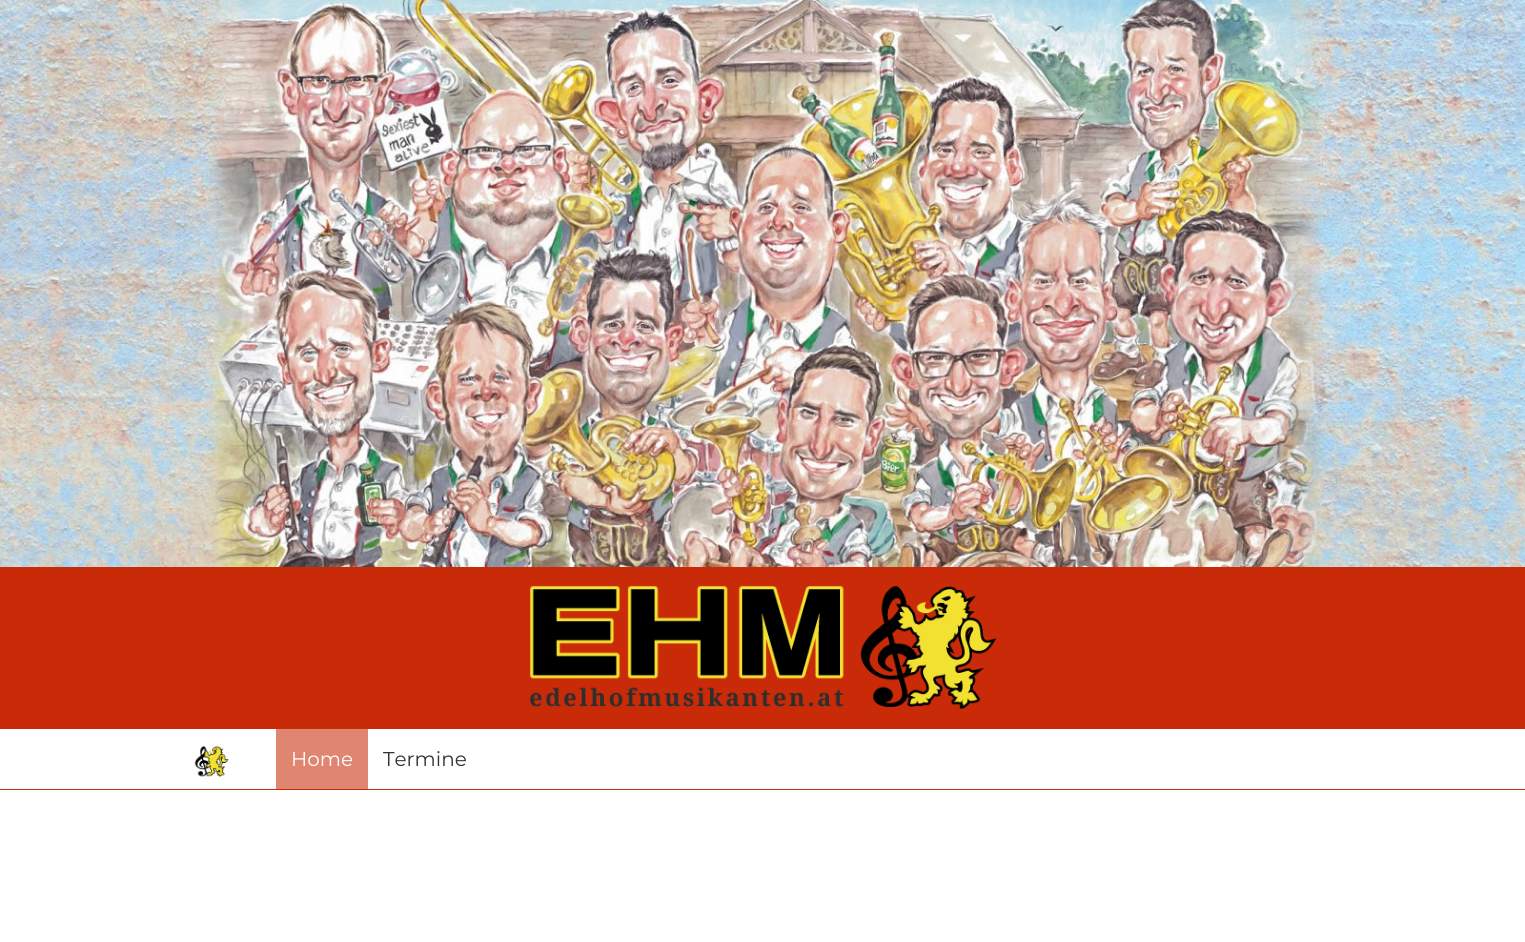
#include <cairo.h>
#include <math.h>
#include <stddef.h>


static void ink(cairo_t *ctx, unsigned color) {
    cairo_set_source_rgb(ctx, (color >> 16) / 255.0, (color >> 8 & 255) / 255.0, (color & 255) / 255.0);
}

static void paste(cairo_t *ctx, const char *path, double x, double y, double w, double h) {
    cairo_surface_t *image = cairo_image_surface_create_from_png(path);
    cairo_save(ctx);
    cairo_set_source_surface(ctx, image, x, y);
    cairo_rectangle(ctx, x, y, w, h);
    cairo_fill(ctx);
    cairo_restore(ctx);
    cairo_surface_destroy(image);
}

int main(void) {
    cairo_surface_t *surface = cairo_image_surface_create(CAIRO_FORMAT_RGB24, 1525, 942);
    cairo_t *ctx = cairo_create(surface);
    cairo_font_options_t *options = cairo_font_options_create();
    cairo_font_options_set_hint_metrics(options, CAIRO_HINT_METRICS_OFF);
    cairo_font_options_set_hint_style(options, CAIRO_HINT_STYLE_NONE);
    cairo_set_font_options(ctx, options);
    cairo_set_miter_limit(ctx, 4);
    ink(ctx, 0xFFFFFF);
    cairo_paint(ctx);
    paste(ctx, "media/1.png", 0, 0, 1525, 567);
    ink(ctx, 0xC92B08);
    cairo_rectangle(ctx, 0, 567, 1525, 162);
    cairo_fill(ctx);
    paste(ctx, "media/2.png", 530, 586, 466, 123);
    cairo_rectangle(ctx, 0, 789, 1525, 1);
    cairo_fill(ctx);
    paste(ctx, "media/3.png", 194, 745, 35, 32);
    ink(ctx, 0xE08570);
    cairo_rectangle(ctx, 276, 729, 92, 60);
    cairo_fill(ctx);
    cairo_select_font_face(ctx, "Montserrat", CAIRO_FONT_SLANT_NORMAL, CAIRO_FONT_WEIGHT_NORMAL);
    cairo_set_font_size(ctx, 20);
    ink(ctx, 0xFFFFFF);
    cairo_move_to(ctx, 291, 766);
    cairo_show_text(ctx, "Home");
    ink(ctx, 0x333333);
    cairo_move_to(ctx, 383, 766);
    cairo_show_text(ctx, "Termine");
    cairo_surface_write_to_png(surface, "image.png");
    cairo_font_options_destroy(options);
    cairo_destroy(ctx);
    cairo_surface_destroy(surface);
    return 0;
}
